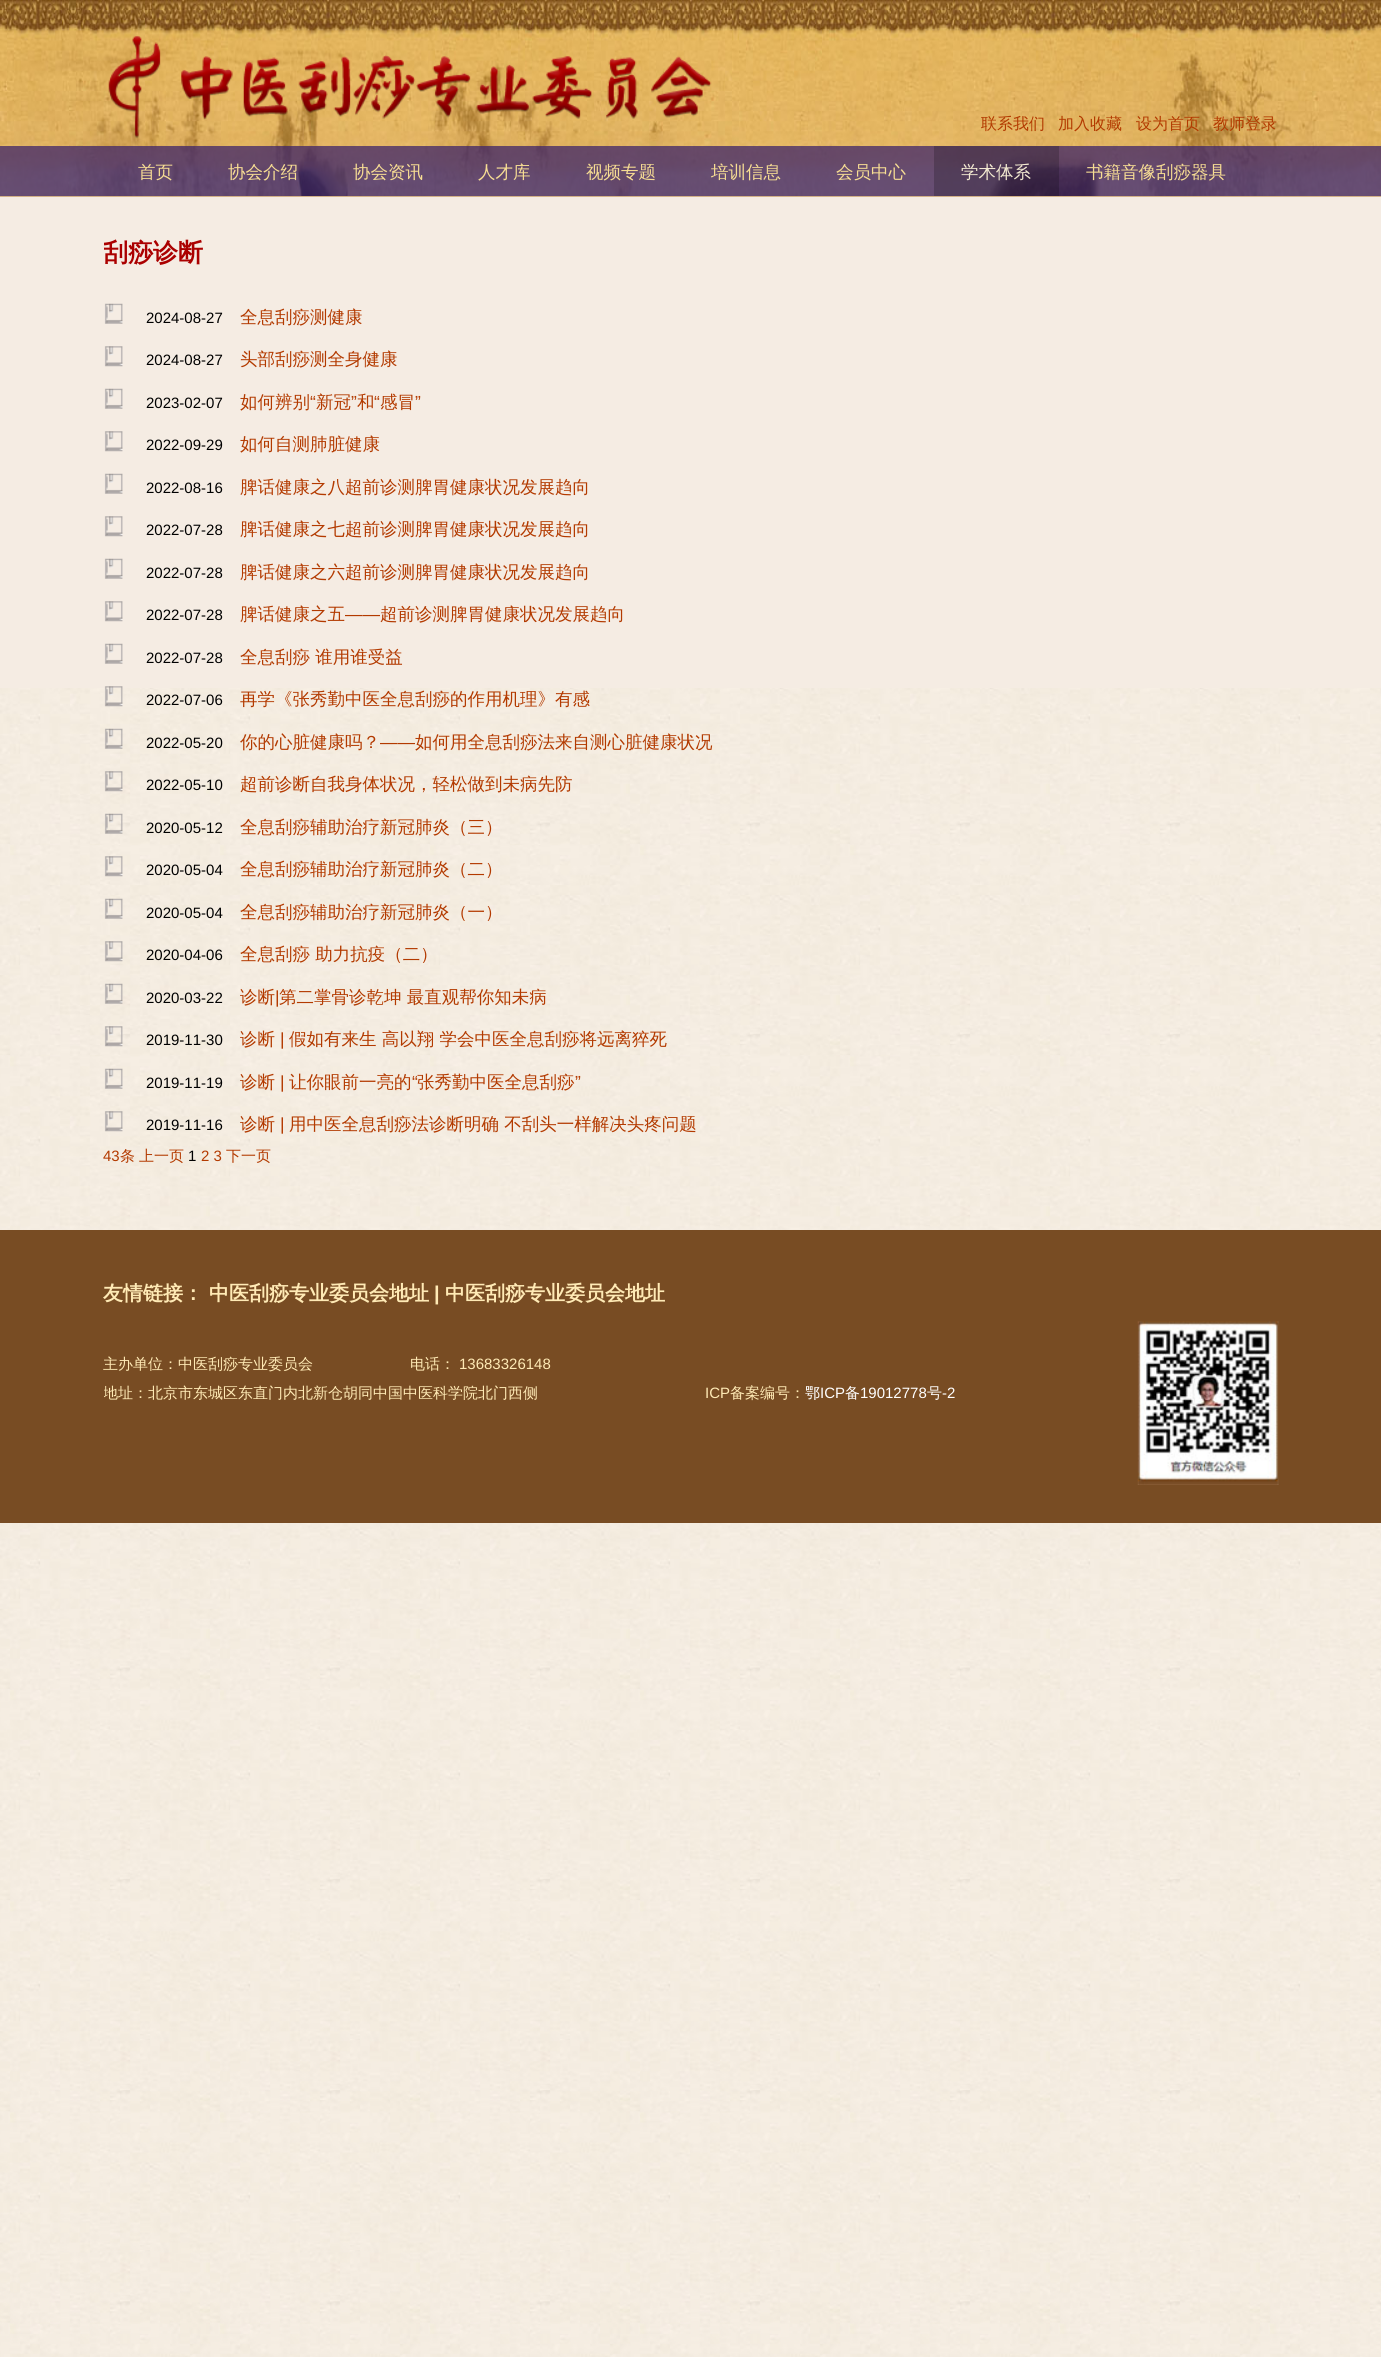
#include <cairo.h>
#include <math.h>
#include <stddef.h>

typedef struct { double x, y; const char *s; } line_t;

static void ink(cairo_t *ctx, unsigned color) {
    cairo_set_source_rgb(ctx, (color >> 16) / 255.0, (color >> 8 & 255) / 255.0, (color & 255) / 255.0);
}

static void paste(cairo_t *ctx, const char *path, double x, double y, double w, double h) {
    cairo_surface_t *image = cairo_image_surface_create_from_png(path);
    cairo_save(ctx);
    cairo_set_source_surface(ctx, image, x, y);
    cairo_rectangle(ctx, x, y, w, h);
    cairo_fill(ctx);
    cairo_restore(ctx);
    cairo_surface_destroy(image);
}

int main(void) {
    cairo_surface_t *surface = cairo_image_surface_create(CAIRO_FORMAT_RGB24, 1381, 2357);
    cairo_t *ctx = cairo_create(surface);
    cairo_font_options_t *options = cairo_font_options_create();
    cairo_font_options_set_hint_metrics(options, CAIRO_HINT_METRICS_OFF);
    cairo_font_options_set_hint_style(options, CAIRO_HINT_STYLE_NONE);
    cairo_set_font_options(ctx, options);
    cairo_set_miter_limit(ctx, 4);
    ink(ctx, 0xFFFFFF);
    cairo_paint(ctx);
    paste(ctx, "media/1.png", 0, 688, 1381, 1669);
    paste(ctx, "media/2.png", 0, 0, 1381, 196);
    paste(ctx, "media/3.png", 108, 36, 604, 102);
    cairo_select_font_face(ctx, "WenQuanYi Zen Hei Medium", CAIRO_FONT_SLANT_NORMAL, CAIRO_FONT_WEIGHT_NORMAL);
    cairo_set_font_size(ctx, 16);
    ink(ctx, 0xB33A00);
    {
        static const line_t items[] = {
            {981, 129, "联系我们"},
            {1058, 129, "加入收藏"},
            {1136, 129, "设为首页"},
            {1213, 129, "教师登录"},
        };
        for (size_t i = 0; i < sizeof items / sizeof *items; i++) {
            cairo_move_to(ctx, items[i].x, items[i].y);
            cairo_show_text(ctx, items[i].s);
        }
    }
    cairo_set_source_rgba(ctx, 0.243, 0.145, 0.408, 0.75);
    cairo_rectangle(ctx, 0, 146, 1381, 50);
    cairo_fill(ctx);
    cairo_set_font_size(ctx, 17.5);
    ink(ctx, 0xF7DD93);
    {
        static const line_t items[] = {
            {138, 178, "首页"},
            {228, 178, "协会介绍"},
            {353, 178, "协会资讯"},
            {478, 178, "人才库"},
            {586, 178, "视频专题"},
            {711, 178, "培训信息"},
            {836, 178, "会员中心"},
        };
        for (size_t i = 0; i < sizeof items / sizeof *items; i++) {
            cairo_move_to(ctx, items[i].x, items[i].y);
            cairo_show_text(ctx, items[i].s);
        }
    }
    cairo_set_source_rgba(ctx, 0, 0, 0, 0.2);
    cairo_rectangle(ctx, 934, 146, 125, 50);
    cairo_fill(ctx);
    ink(ctx, 0xF3EAD1);
    cairo_move_to(ctx, 961, 178);
    cairo_show_text(ctx, "学术体系");
    ink(ctx, 0xF7DD93);
    cairo_move_to(ctx, 1086, 178);
    cairo_show_text(ctx, "书籍音像刮痧器具");
    ink(ctx, 0xF5ECE3);
    cairo_rectangle(ctx, 0, 197, 1381, 491);
    cairo_fill(ctx);
    ink(ctx, 0xD3B187);
    cairo_rectangle(ctx, 0, 196, 1381, 1);
    cairo_fill(ctx);
    cairo_save(ctx);
    cairo_rectangle(ctx, 104, 235, 1175, 35);
    cairo_clip(ctx);
    cairo_select_font_face(ctx, "WenQuanYi Zen Hei", CAIRO_FONT_SLANT_NORMAL, CAIRO_FONT_WEIGHT_BOLD);
    cairo_set_font_size(ctx, 25);
    ink(ctx, 0xAB0000);
    cairo_move_to(ctx, 103, 261);
    cairo_show_text(ctx, "刮痧诊断");
    cairo_restore(ctx);
    paste(ctx, "media/4.png", 104, 303, 19, 21);
    cairo_select_font_face(ctx, "Liberation Sans", CAIRO_FONT_SLANT_NORMAL, CAIRO_FONT_WEIGHT_NORMAL);
    cairo_set_font_size(ctx, 15);
    ink(ctx, 0x000000);
    cairo_move_to(ctx, 146, 323);
    cairo_show_text(ctx, "2024-08-27");
    cairo_select_font_face(ctx, "WenQuanYi Zen Hei Medium", CAIRO_FONT_SLANT_NORMAL, CAIRO_FONT_WEIGHT_NORMAL);
    cairo_set_font_size(ctx, 17.5);
    ink(ctx, 0xB33A00);
    cairo_move_to(ctx, 240, 323);
    cairo_show_text(ctx, "全息刮痧测健康");
    paste(ctx, "media/5.png", 104, 346, 19, 21);
    cairo_select_font_face(ctx, "Liberation Sans", CAIRO_FONT_SLANT_NORMAL, CAIRO_FONT_WEIGHT_NORMAL);
    cairo_set_font_size(ctx, 15);
    ink(ctx, 0x000000);
    cairo_move_to(ctx, 146, 365);
    cairo_show_text(ctx, "2024-08-27");
    cairo_select_font_face(ctx, "WenQuanYi Zen Hei Medium", CAIRO_FONT_SLANT_NORMAL, CAIRO_FONT_WEIGHT_NORMAL);
    cairo_set_font_size(ctx, 17.5);
    ink(ctx, 0xB33A00);
    cairo_move_to(ctx, 240, 365);
    cairo_show_text(ctx, "头部刮痧测全身健康");
    paste(ctx, "media/4.png", 104, 388, 19, 21);
    cairo_select_font_face(ctx, "Liberation Sans", CAIRO_FONT_SLANT_NORMAL, CAIRO_FONT_WEIGHT_NORMAL);
    cairo_set_font_size(ctx, 15);
    ink(ctx, 0x000000);
    cairo_move_to(ctx, 146, 408);
    cairo_show_text(ctx, "2023-02-07");
    cairo_select_font_face(ctx, "WenQuanYi Zen Hei Medium", CAIRO_FONT_SLANT_NORMAL, CAIRO_FONT_WEIGHT_NORMAL);
    cairo_set_font_size(ctx, 17.5);
    ink(ctx, 0xB33A00);
    cairo_move_to(ctx, 240, 408);
    cairo_show_text(ctx, "如何辨别");
    cairo_select_font_face(ctx, "Liberation Sans", CAIRO_FONT_SLANT_NORMAL, CAIRO_FONT_WEIGHT_NORMAL);
    cairo_move_to(ctx, 310, 408);
    cairo_show_text(ctx, "“");
    cairo_select_font_face(ctx, "WenQuanYi Zen Hei Medium", CAIRO_FONT_SLANT_NORMAL, CAIRO_FONT_WEIGHT_NORMAL);
    cairo_move_to(ctx, 316, 408);
    cairo_show_text(ctx, "新冠");
    cairo_select_font_face(ctx, "Liberation Sans", CAIRO_FONT_SLANT_NORMAL, CAIRO_FONT_WEIGHT_NORMAL);
    cairo_move_to(ctx, 351, 408);
    cairo_show_text(ctx, "”");
    cairo_select_font_face(ctx, "WenQuanYi Zen Hei Medium", CAIRO_FONT_SLANT_NORMAL, CAIRO_FONT_WEIGHT_NORMAL);
    cairo_move_to(ctx, 357, 408);
    cairo_show_text(ctx, "和");
    cairo_select_font_face(ctx, "Liberation Sans", CAIRO_FONT_SLANT_NORMAL, CAIRO_FONT_WEIGHT_NORMAL);
    cairo_move_to(ctx, 374, 408);
    cairo_show_text(ctx, "“");
    cairo_select_font_face(ctx, "WenQuanYi Zen Hei Medium", CAIRO_FONT_SLANT_NORMAL, CAIRO_FONT_WEIGHT_NORMAL);
    cairo_move_to(ctx, 380, 408);
    cairo_show_text(ctx, "感冒");
    cairo_select_font_face(ctx, "Liberation Sans", CAIRO_FONT_SLANT_NORMAL, CAIRO_FONT_WEIGHT_NORMAL);
    cairo_move_to(ctx, 415, 408);
    cairo_show_text(ctx, "”");
    paste(ctx, "media/5.png", 104, 431, 19, 21);
    cairo_set_font_size(ctx, 15);
    ink(ctx, 0x000000);
    cairo_move_to(ctx, 146, 450);
    cairo_show_text(ctx, "2022-09-29");
    cairo_select_font_face(ctx, "WenQuanYi Zen Hei Medium", CAIRO_FONT_SLANT_NORMAL, CAIRO_FONT_WEIGHT_NORMAL);
    cairo_set_font_size(ctx, 17.5);
    ink(ctx, 0xB33A00);
    cairo_move_to(ctx, 240, 450);
    cairo_show_text(ctx, "如何自测肺脏健康");
    paste(ctx, "media/4.png", 104, 473, 19, 21);
    cairo_select_font_face(ctx, "Liberation Sans", CAIRO_FONT_SLANT_NORMAL, CAIRO_FONT_WEIGHT_NORMAL);
    cairo_set_font_size(ctx, 15);
    ink(ctx, 0x000000);
    cairo_move_to(ctx, 146, 493);
    cairo_show_text(ctx, "2022-08-16");
    cairo_select_font_face(ctx, "WenQuanYi Zen Hei Medium", CAIRO_FONT_SLANT_NORMAL, CAIRO_FONT_WEIGHT_NORMAL);
    cairo_set_font_size(ctx, 17.5);
    ink(ctx, 0xB33A00);
    cairo_move_to(ctx, 240, 493);
    cairo_show_text(ctx, "脾话健康之八超前诊测脾胃健康状况发展趋向");
    paste(ctx, "media/5.png", 104, 516, 19, 21);
    cairo_select_font_face(ctx, "Liberation Sans", CAIRO_FONT_SLANT_NORMAL, CAIRO_FONT_WEIGHT_NORMAL);
    cairo_set_font_size(ctx, 15);
    ink(ctx, 0x000000);
    cairo_move_to(ctx, 146, 535);
    cairo_show_text(ctx, "2022-07-28");
    cairo_select_font_face(ctx, "WenQuanYi Zen Hei Medium", CAIRO_FONT_SLANT_NORMAL, CAIRO_FONT_WEIGHT_NORMAL);
    cairo_set_font_size(ctx, 17.5);
    ink(ctx, 0xB33A00);
    cairo_move_to(ctx, 240, 535);
    cairo_show_text(ctx, "脾话健康之七超前诊测脾胃健康状况发展趋向");
    paste(ctx, "media/4.png", 104, 558, 19, 21);
    cairo_select_font_face(ctx, "Liberation Sans", CAIRO_FONT_SLANT_NORMAL, CAIRO_FONT_WEIGHT_NORMAL);
    cairo_set_font_size(ctx, 15);
    ink(ctx, 0x000000);
    cairo_move_to(ctx, 146, 578);
    cairo_show_text(ctx, "2022-07-28");
    cairo_select_font_face(ctx, "WenQuanYi Zen Hei Medium", CAIRO_FONT_SLANT_NORMAL, CAIRO_FONT_WEIGHT_NORMAL);
    cairo_set_font_size(ctx, 17.5);
    ink(ctx, 0xB33A00);
    cairo_move_to(ctx, 240, 578);
    cairo_show_text(ctx, "脾话健康之六超前诊测脾胃健康状况发展趋向");
    paste(ctx, "media/5.png", 104, 601, 19, 21);
    cairo_select_font_face(ctx, "Liberation Sans", CAIRO_FONT_SLANT_NORMAL, CAIRO_FONT_WEIGHT_NORMAL);
    cairo_set_font_size(ctx, 15);
    ink(ctx, 0x000000);
    cairo_move_to(ctx, 146, 620);
    cairo_show_text(ctx, "2022-07-28");
    cairo_select_font_face(ctx, "WenQuanYi Zen Hei Medium", CAIRO_FONT_SLANT_NORMAL, CAIRO_FONT_WEIGHT_NORMAL);
    cairo_set_font_size(ctx, 17.5);
    ink(ctx, 0xB33A00);
    cairo_move_to(ctx, 240, 620);
    cairo_show_text(ctx, "脾话健康之五");
    cairo_select_font_face(ctx, "Liberation Sans", CAIRO_FONT_SLANT_NORMAL, CAIRO_FONT_WEIGHT_NORMAL);
    cairo_move_to(ctx, 345, 620);
    cairo_show_text(ctx, "——");
    cairo_select_font_face(ctx, "WenQuanYi Zen Hei Medium", CAIRO_FONT_SLANT_NORMAL, CAIRO_FONT_WEIGHT_NORMAL);
    cairo_move_to(ctx, 380, 620);
    cairo_show_text(ctx, "超前诊测脾胃健康状况发展趋向");
    paste(ctx, "media/4.png", 104, 643, 19, 21);
    cairo_select_font_face(ctx, "Liberation Sans", CAIRO_FONT_SLANT_NORMAL, CAIRO_FONT_WEIGHT_NORMAL);
    cairo_set_font_size(ctx, 15);
    ink(ctx, 0x000000);
    cairo_move_to(ctx, 146, 663);
    cairo_show_text(ctx, "2022-07-28");
    cairo_select_font_face(ctx, "WenQuanYi Zen Hei Medium", CAIRO_FONT_SLANT_NORMAL, CAIRO_FONT_WEIGHT_NORMAL);
    cairo_set_font_size(ctx, 17.5);
    ink(ctx, 0xB33A00);
    cairo_move_to(ctx, 240, 663);
    cairo_show_text(ctx, "全息刮痧 谁用谁受益");
    paste(ctx, "media/6.png", 104, 686, 19, 21);
    cairo_select_font_face(ctx, "Liberation Sans", CAIRO_FONT_SLANT_NORMAL, CAIRO_FONT_WEIGHT_NORMAL);
    cairo_set_font_size(ctx, 15);
    ink(ctx, 0x000000);
    cairo_move_to(ctx, 146, 705);
    cairo_show_text(ctx, "2022-07-06");
    cairo_select_font_face(ctx, "WenQuanYi Zen Hei Medium", CAIRO_FONT_SLANT_NORMAL, CAIRO_FONT_WEIGHT_NORMAL);
    cairo_set_font_size(ctx, 17.5);
    ink(ctx, 0xB33A00);
    cairo_move_to(ctx, 240, 705);
    cairo_show_text(ctx, "再学《张秀勤中医全息刮痧的作用机理》有感");
    paste(ctx, "media/7.png", 104, 728, 19, 21);
    cairo_select_font_face(ctx, "Liberation Sans", CAIRO_FONT_SLANT_NORMAL, CAIRO_FONT_WEIGHT_NORMAL);
    cairo_set_font_size(ctx, 15);
    ink(ctx, 0x000000);
    cairo_move_to(ctx, 146, 748);
    cairo_show_text(ctx, "2022-05-20");
    cairo_select_font_face(ctx, "WenQuanYi Zen Hei Medium", CAIRO_FONT_SLANT_NORMAL, CAIRO_FONT_WEIGHT_NORMAL);
    cairo_set_font_size(ctx, 17.5);
    ink(ctx, 0xB33A00);
    cairo_move_to(ctx, 240, 748);
    cairo_show_text(ctx, "你的心脏健康吗？");
    cairo_select_font_face(ctx, "Liberation Sans", CAIRO_FONT_SLANT_NORMAL, CAIRO_FONT_WEIGHT_NORMAL);
    cairo_move_to(ctx, 380, 748);
    cairo_show_text(ctx, "——");
    cairo_select_font_face(ctx, "WenQuanYi Zen Hei Medium", CAIRO_FONT_SLANT_NORMAL, CAIRO_FONT_WEIGHT_NORMAL);
    cairo_move_to(ctx, 415, 748);
    cairo_show_text(ctx, "如何用全息刮痧法来自测心脏健康状况");
    paste(ctx, "media/8.png", 104, 771, 19, 21);
    cairo_select_font_face(ctx, "Liberation Sans", CAIRO_FONT_SLANT_NORMAL, CAIRO_FONT_WEIGHT_NORMAL);
    cairo_set_font_size(ctx, 15);
    ink(ctx, 0x000000);
    cairo_move_to(ctx, 146, 790);
    cairo_show_text(ctx, "2022-05-10");
    cairo_select_font_face(ctx, "WenQuanYi Zen Hei Medium", CAIRO_FONT_SLANT_NORMAL, CAIRO_FONT_WEIGHT_NORMAL);
    cairo_set_font_size(ctx, 17.5);
    ink(ctx, 0xB33A00);
    cairo_move_to(ctx, 240, 790);
    cairo_show_text(ctx, "超前诊断自我身体状况，轻松做到未病先防");
    paste(ctx, "media/9.png", 104, 813, 19, 21);
    cairo_select_font_face(ctx, "Liberation Sans", CAIRO_FONT_SLANT_NORMAL, CAIRO_FONT_WEIGHT_NORMAL);
    cairo_set_font_size(ctx, 15);
    ink(ctx, 0x000000);
    cairo_move_to(ctx, 146, 833);
    cairo_show_text(ctx, "2020-05-12");
    cairo_select_font_face(ctx, "WenQuanYi Zen Hei Medium", CAIRO_FONT_SLANT_NORMAL, CAIRO_FONT_WEIGHT_NORMAL);
    cairo_set_font_size(ctx, 17.5);
    ink(ctx, 0xB33A00);
    cairo_move_to(ctx, 240, 833);
    cairo_show_text(ctx, "全息刮痧辅助治疗新冠肺炎（三）");
    paste(ctx, "media/10.png", 104, 856, 19, 21);
    cairo_select_font_face(ctx, "Liberation Sans", CAIRO_FONT_SLANT_NORMAL, CAIRO_FONT_WEIGHT_NORMAL);
    cairo_set_font_size(ctx, 15);
    ink(ctx, 0x000000);
    cairo_move_to(ctx, 146, 875);
    cairo_show_text(ctx, "2020-05-04");
    cairo_select_font_face(ctx, "WenQuanYi Zen Hei Medium", CAIRO_FONT_SLANT_NORMAL, CAIRO_FONT_WEIGHT_NORMAL);
    cairo_set_font_size(ctx, 17.5);
    ink(ctx, 0xB33A00);
    cairo_move_to(ctx, 240, 875);
    cairo_show_text(ctx, "全息刮痧辅助治疗新冠肺炎（二）");
    paste(ctx, "media/11.png", 104, 898, 19, 21);
    cairo_select_font_face(ctx, "Liberation Sans", CAIRO_FONT_SLANT_NORMAL, CAIRO_FONT_WEIGHT_NORMAL);
    cairo_set_font_size(ctx, 15);
    ink(ctx, 0x000000);
    cairo_move_to(ctx, 146, 918);
    cairo_show_text(ctx, "2020-05-04");
    cairo_select_font_face(ctx, "WenQuanYi Zen Hei Medium", CAIRO_FONT_SLANT_NORMAL, CAIRO_FONT_WEIGHT_NORMAL);
    cairo_set_font_size(ctx, 17.5);
    ink(ctx, 0xB33A00);
    cairo_move_to(ctx, 240, 918);
    cairo_show_text(ctx, "全息刮痧辅助治疗新冠肺炎（一）");
    paste(ctx, "media/12.png", 104, 941, 19, 21);
    cairo_select_font_face(ctx, "Liberation Sans", CAIRO_FONT_SLANT_NORMAL, CAIRO_FONT_WEIGHT_NORMAL);
    cairo_set_font_size(ctx, 15);
    ink(ctx, 0x000000);
    cairo_move_to(ctx, 146, 960);
    cairo_show_text(ctx, "2020-04-06");
    cairo_select_font_face(ctx, "WenQuanYi Zen Hei Medium", CAIRO_FONT_SLANT_NORMAL, CAIRO_FONT_WEIGHT_NORMAL);
    cairo_set_font_size(ctx, 17.5);
    ink(ctx, 0xB33A00);
    cairo_move_to(ctx, 240, 960);
    cairo_show_text(ctx, "全息刮痧 助力抗疫（二）");
    paste(ctx, "media/13.png", 104, 983, 19, 21);
    cairo_select_font_face(ctx, "Liberation Sans", CAIRO_FONT_SLANT_NORMAL, CAIRO_FONT_WEIGHT_NORMAL);
    cairo_set_font_size(ctx, 15);
    ink(ctx, 0x000000);
    cairo_move_to(ctx, 146, 1003);
    cairo_show_text(ctx, "2020-03-22");
    cairo_select_font_face(ctx, "WenQuanYi Zen Hei Medium", CAIRO_FONT_SLANT_NORMAL, CAIRO_FONT_WEIGHT_NORMAL);
    cairo_set_font_size(ctx, 17.5);
    ink(ctx, 0xB33A00);
    cairo_move_to(ctx, 240, 1003);
    cairo_show_text(ctx, "诊断");
    cairo_select_font_face(ctx, "Liberation Sans", CAIRO_FONT_SLANT_NORMAL, CAIRO_FONT_WEIGHT_NORMAL);
    cairo_move_to(ctx, 275, 1003);
    cairo_show_text(ctx, "|");
    cairo_select_font_face(ctx, "WenQuanYi Zen Hei Medium", CAIRO_FONT_SLANT_NORMAL, CAIRO_FONT_WEIGHT_NORMAL);
    cairo_move_to(ctx, 279, 1003);
    cairo_show_text(ctx, "第二掌骨诊乾坤 最直观帮你知未病");
    paste(ctx, "media/14.png", 104, 1026, 19, 21);
    cairo_select_font_face(ctx, "Liberation Sans", CAIRO_FONT_SLANT_NORMAL, CAIRO_FONT_WEIGHT_NORMAL);
    cairo_set_font_size(ctx, 15);
    ink(ctx, 0x000000);
    cairo_move_to(ctx, 146, 1045);
    cairo_show_text(ctx, "2019-11-30");
    cairo_select_font_face(ctx, "WenQuanYi Zen Hei Medium", CAIRO_FONT_SLANT_NORMAL, CAIRO_FONT_WEIGHT_NORMAL);
    cairo_set_font_size(ctx, 17.5);
    ink(ctx, 0xB33A00);
    cairo_move_to(ctx, 240, 1045);
    cairo_show_text(ctx, "诊断");
    cairo_select_font_face(ctx, "Liberation Sans", CAIRO_FONT_SLANT_NORMAL, CAIRO_FONT_WEIGHT_NORMAL);
    cairo_move_to(ctx, 280, 1045);
    cairo_show_text(ctx, "|");
    cairo_select_font_face(ctx, "WenQuanYi Zen Hei Medium", CAIRO_FONT_SLANT_NORMAL, CAIRO_FONT_WEIGHT_NORMAL);
    cairo_move_to(ctx, 289, 1045);
    cairo_show_text(ctx, "假如有来生 高以翔 学会中医全息刮痧将远离猝死");
    paste(ctx, "media/15.png", 104, 1068, 19, 21);
    cairo_select_font_face(ctx, "Liberation Sans", CAIRO_FONT_SLANT_NORMAL, CAIRO_FONT_WEIGHT_NORMAL);
    cairo_set_font_size(ctx, 15);
    ink(ctx, 0x000000);
    cairo_move_to(ctx, 146, 1088);
    cairo_show_text(ctx, "2019-11-19");
    cairo_select_font_face(ctx, "WenQuanYi Zen Hei Medium", CAIRO_FONT_SLANT_NORMAL, CAIRO_FONT_WEIGHT_NORMAL);
    cairo_set_font_size(ctx, 17.5);
    ink(ctx, 0xB33A00);
    cairo_move_to(ctx, 240, 1088);
    cairo_show_text(ctx, "诊断");
    cairo_select_font_face(ctx, "Liberation Sans", CAIRO_FONT_SLANT_NORMAL, CAIRO_FONT_WEIGHT_NORMAL);
    cairo_move_to(ctx, 280, 1088);
    cairo_show_text(ctx, "|");
    cairo_select_font_face(ctx, "WenQuanYi Zen Hei Medium", CAIRO_FONT_SLANT_NORMAL, CAIRO_FONT_WEIGHT_NORMAL);
    cairo_move_to(ctx, 289, 1088);
    cairo_show_text(ctx, "让你眼前一亮的");
    cairo_select_font_face(ctx, "Liberation Sans", CAIRO_FONT_SLANT_NORMAL, CAIRO_FONT_WEIGHT_NORMAL);
    cairo_move_to(ctx, 412, 1088);
    cairo_show_text(ctx, "“");
    cairo_select_font_face(ctx, "WenQuanYi Zen Hei Medium", CAIRO_FONT_SLANT_NORMAL, CAIRO_FONT_WEIGHT_NORMAL);
    cairo_move_to(ctx, 417, 1088);
    cairo_show_text(ctx, "张秀勤中医全息刮痧");
    cairo_select_font_face(ctx, "Liberation Sans", CAIRO_FONT_SLANT_NORMAL, CAIRO_FONT_WEIGHT_NORMAL);
    cairo_move_to(ctx, 575, 1088);
    cairo_show_text(ctx, "”");
    paste(ctx, "media/16.png", 104, 1111, 19, 21);
    cairo_set_font_size(ctx, 15);
    ink(ctx, 0x000000);
    cairo_move_to(ctx, 146, 1130);
    cairo_show_text(ctx, "2019-11-16");
    cairo_select_font_face(ctx, "WenQuanYi Zen Hei Medium", CAIRO_FONT_SLANT_NORMAL, CAIRO_FONT_WEIGHT_NORMAL);
    cairo_set_font_size(ctx, 17.5);
    ink(ctx, 0xB33A00);
    cairo_move_to(ctx, 240, 1130);
    cairo_show_text(ctx, "诊断");
    cairo_select_font_face(ctx, "Liberation Sans", CAIRO_FONT_SLANT_NORMAL, CAIRO_FONT_WEIGHT_NORMAL);
    cairo_move_to(ctx, 280, 1130);
    cairo_show_text(ctx, "|");
    cairo_select_font_face(ctx, "WenQuanYi Zen Hei Medium", CAIRO_FONT_SLANT_NORMAL, CAIRO_FONT_WEIGHT_NORMAL);
    cairo_move_to(ctx, 289, 1130);
    cairo_show_text(ctx, "用中医全息刮痧法诊断明确 不刮头一样解决头疼问题");
    cairo_select_font_face(ctx, "Liberation Sans", CAIRO_FONT_SLANT_NORMAL, CAIRO_FONT_WEIGHT_NORMAL);
    cairo_set_font_size(ctx, 15);
    cairo_move_to(ctx, 103, 1161);
    cairo_show_text(ctx, "43");
    cairo_select_font_face(ctx, "WenQuanYi Zen Hei Medium", CAIRO_FONT_SLANT_NORMAL, CAIRO_FONT_WEIGHT_NORMAL);
    cairo_move_to(ctx, 120, 1161);
    cairo_show_text(ctx, "条");
    cairo_move_to(ctx, 139, 1161);
    cairo_show_text(ctx, "上一页");
    cairo_select_font_face(ctx, "Liberation Sans", CAIRO_FONT_SLANT_NORMAL, CAIRO_FONT_WEIGHT_NORMAL);
    ink(ctx, 0x000000);
    cairo_move_to(ctx, 188, 1161);
    cairo_show_text(ctx, "1");
    ink(ctx, 0xB33A00);
    cairo_move_to(ctx, 201, 1161);
    cairo_show_text(ctx, "2 3");
    cairo_select_font_face(ctx, "WenQuanYi Zen Hei Medium", CAIRO_FONT_SLANT_NORMAL, CAIRO_FONT_WEIGHT_NORMAL);
    cairo_move_to(ctx, 226, 1161);
    cairo_show_text(ctx, "下一页");
    ink(ctx, 0x784C23);
    cairo_rectangle(ctx, 0, 1230, 1381, 293);
    cairo_fill(ctx);
    cairo_select_font_face(ctx, "WenQuanYi Zen Hei", CAIRO_FONT_SLANT_NORMAL, CAIRO_FONT_WEIGHT_BOLD);
    cairo_set_font_size(ctx, 20);
    ink(ctx, 0xFFEAB5);
    cairo_move_to(ctx, 103, 1300);
    cairo_show_text(ctx, "友情链接：");
    cairo_move_to(ctx, 209, 1300);
    cairo_show_text(ctx, "中医刮痧专业委员会地址");
    cairo_select_font_face(ctx, "Liberation Sans", CAIRO_FONT_SLANT_NORMAL, CAIRO_FONT_WEIGHT_BOLD);
    cairo_move_to(ctx, 434, 1300);
    cairo_show_text(ctx, "|");
    cairo_select_font_face(ctx, "WenQuanYi Zen Hei", CAIRO_FONT_SLANT_NORMAL, CAIRO_FONT_WEIGHT_BOLD);
    cairo_move_to(ctx, 445, 1300);
    cairo_show_text(ctx, "中医刮痧专业委员会地址");
    cairo_select_font_face(ctx, "WenQuanYi Zen Hei Medium", CAIRO_FONT_SLANT_NORMAL, CAIRO_FONT_WEIGHT_NORMAL);
    cairo_set_font_size(ctx, 15);
    cairo_move_to(ctx, 103, 1369);
    cairo_show_text(ctx, "主办单位：中医刮痧专业委员会");
    cairo_move_to(ctx, 410, 1369);
    cairo_show_text(ctx, "电话：");
    cairo_select_font_face(ctx, "Liberation Sans", CAIRO_FONT_SLANT_NORMAL, CAIRO_FONT_WEIGHT_NORMAL);
    cairo_move_to(ctx, 459, 1369);
    cairo_show_text(ctx, "13683326148");
    cairo_save(ctx);
    cairo_rectangle(ctx, 104, 1321, 851, 89);
    cairo_clip(ctx);
    cairo_select_font_face(ctx, "WenQuanYi Zen Hei Medium", CAIRO_FONT_SLANT_NORMAL, CAIRO_FONT_WEIGHT_NORMAL);
    cairo_move_to(ctx, 103, 1398);
    cairo_show_text(ctx, "地址：北京市东城区东直门内北新仓胡同中国中医科学院北门西侧");
    cairo_restore(ctx);
    cairo_move_to(ctx, 705, 1398);
    cairo_show_text(ctx, "ICP");
    cairo_select_font_face(ctx, "WenQuanYi Zen Hei Medium", CAIRO_FONT_SLANT_NORMAL, CAIRO_FONT_WEIGHT_NORMAL);
    cairo_move_to(ctx, 730, 1398);
    cairo_show_text(ctx, "备案编号：");
    ink(ctx, 0xFFFFFF);
    cairo_move_to(ctx, 805, 1398);
    cairo_show_text(ctx, "鄂");
    cairo_select_font_face(ctx, "Liberation Sans", CAIRO_FONT_SLANT_NORMAL, CAIRO_FONT_WEIGHT_NORMAL);
    cairo_move_to(ctx, 820, 1398);
    cairo_show_text(ctx, "ICP");
    cairo_select_font_face(ctx, "WenQuanYi Zen Hei Medium", CAIRO_FONT_SLANT_NORMAL, CAIRO_FONT_WEIGHT_NORMAL);
    cairo_move_to(ctx, 845, 1398);
    cairo_show_text(ctx, "备");
    cairo_select_font_face(ctx, "Liberation Sans", CAIRO_FONT_SLANT_NORMAL, CAIRO_FONT_WEIGHT_NORMAL);
    cairo_move_to(ctx, 860, 1398);
    cairo_show_text(ctx, "19012778");
    cairo_select_font_face(ctx, "WenQuanYi Zen Hei Medium", CAIRO_FONT_SLANT_NORMAL, CAIRO_FONT_WEIGHT_NORMAL);
    cairo_move_to(ctx, 927, 1398);
    cairo_show_text(ctx, "号");
    cairo_select_font_face(ctx, "Liberation Sans", CAIRO_FONT_SLANT_NORMAL, CAIRO_FONT_WEIGHT_NORMAL);
    cairo_move_to(ctx, 942, 1398);
    cairo_show_text(ctx, "-2");
    paste(ctx, "media/17.png", 1137, 1321, 142, 164);
    cairo_surface_write_to_png(surface, "image.png");
    cairo_font_options_destroy(options);
    cairo_destroy(ctx);
    cairo_surface_destroy(surface);
    return 0;
}
